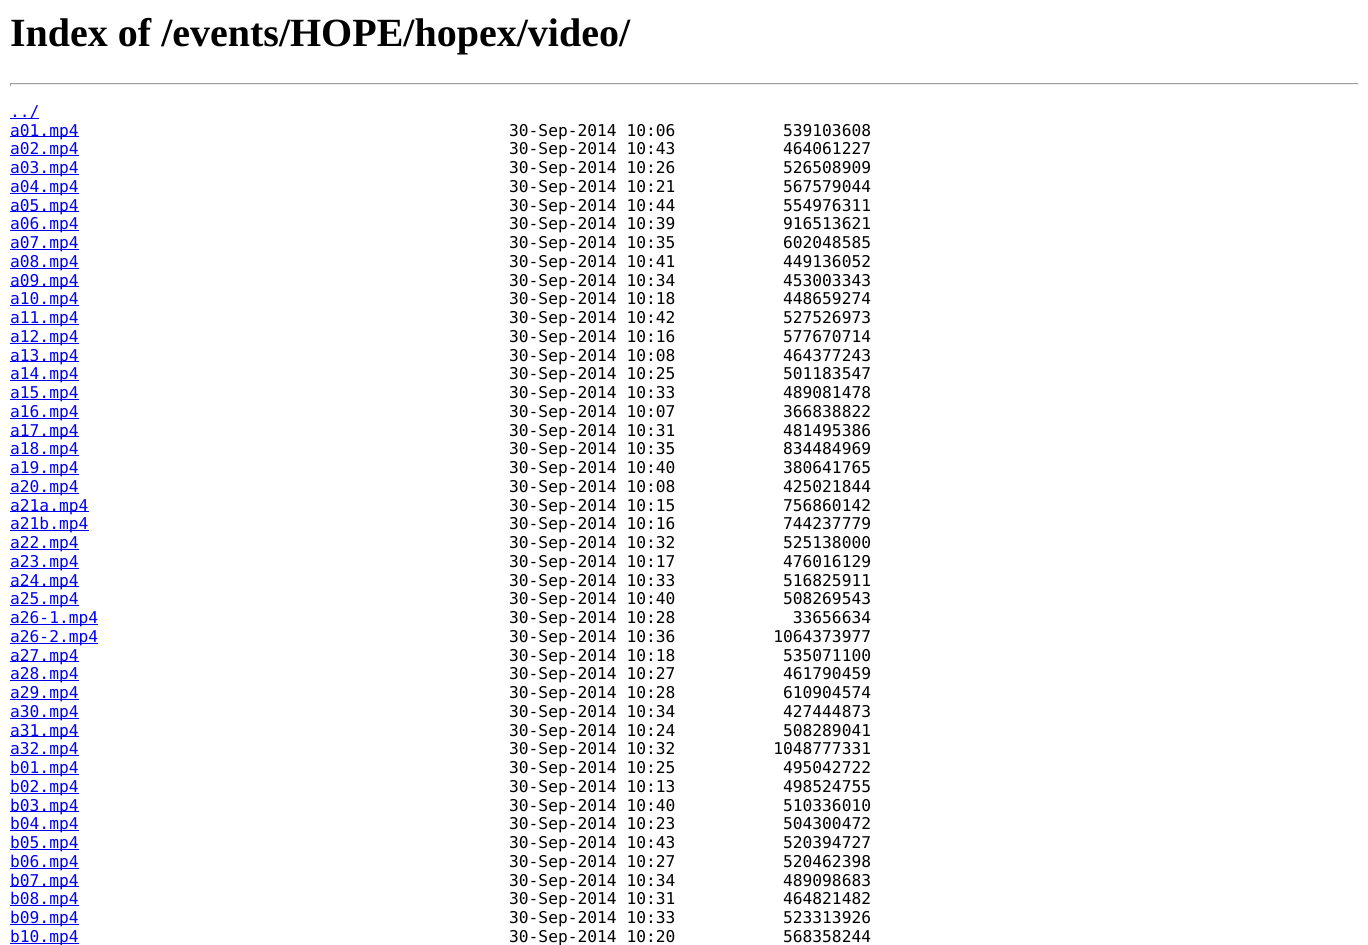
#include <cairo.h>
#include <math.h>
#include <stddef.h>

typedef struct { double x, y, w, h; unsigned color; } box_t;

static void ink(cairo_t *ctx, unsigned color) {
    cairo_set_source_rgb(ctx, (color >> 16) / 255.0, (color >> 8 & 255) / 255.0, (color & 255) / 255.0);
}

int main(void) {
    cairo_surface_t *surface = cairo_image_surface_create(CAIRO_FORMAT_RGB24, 1368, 945);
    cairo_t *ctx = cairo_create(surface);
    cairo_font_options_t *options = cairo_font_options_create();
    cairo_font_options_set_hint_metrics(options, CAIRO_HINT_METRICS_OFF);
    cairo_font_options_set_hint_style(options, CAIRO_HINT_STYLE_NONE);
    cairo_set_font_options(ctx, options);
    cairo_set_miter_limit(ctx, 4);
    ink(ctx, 0xFFFFFF);
    cairo_paint(ctx);
    cairo_select_font_face(ctx, "Liberation Serif", CAIRO_FONT_SLANT_NORMAL, CAIRO_FONT_WEIGHT_BOLD);
    cairo_set_font_size(ctx, 40);
    ink(ctx, 0x000000);
    cairo_move_to(ctx, 10, 46);
    cairo_show_text(ctx, "Index of /events/HOPE/hopex/video/");
    {
        static const box_t items[] = {
            {10, 83, 1349, 1, 0x9F9F9F},
            {1358, 83, 1, 3, 0xEEEEEE},
            {10, 84, 1349, 1, 0xEEEEEE},
            {10, 83, 1, 3, 0x9F9F9F},
            {10, 118, 29, 1, 0x0000EE},
        };
        for (size_t i = 0; i < sizeof items / sizeof *items; i++) {
            ink(ctx, items[i].color);
            cairo_rectangle(ctx, items[i].x, items[i].y, items[i].w, items[i].h);
            cairo_fill(ctx);
        }
    }
    cairo_select_font_face(ctx, "DejaVu Sans Mono", CAIRO_FONT_SLANT_NORMAL, CAIRO_FONT_WEIGHT_NORMAL);
    cairo_set_font_size(ctx, 16.25);
    cairo_move_to(ctx, 10, 117);
    cairo_show_text(ctx, "../");
    cairo_rectangle(ctx, 10, 136, 69, 1);
    cairo_fill(ctx);
    cairo_move_to(ctx, 10, 136);
    cairo_show_text(ctx, "a01.mp4");
    ink(ctx, 0x000000);
    cairo_move_to(ctx, 509, 136);
    cairo_show_text(ctx, "30-Sep-2014 10:06           539103608");
    ink(ctx, 0x0000EE);
    cairo_rectangle(ctx, 10, 155, 69, 1);
    cairo_fill(ctx);
    cairo_move_to(ctx, 10, 154);
    cairo_show_text(ctx, "a02.mp4");
    ink(ctx, 0x000000);
    cairo_move_to(ctx, 509, 154);
    cairo_show_text(ctx, "30-Sep-2014 10:43           464061227");
    ink(ctx, 0x0000EE);
    cairo_rectangle(ctx, 10, 174, 69, 1);
    cairo_fill(ctx);
    cairo_move_to(ctx, 10, 173);
    cairo_show_text(ctx, "a03.mp4");
    ink(ctx, 0x000000);
    cairo_move_to(ctx, 509, 173);
    cairo_show_text(ctx, "30-Sep-2014 10:26           526508909");
    ink(ctx, 0x0000EE);
    cairo_rectangle(ctx, 10, 193, 69, 1);
    cairo_fill(ctx);
    cairo_move_to(ctx, 10, 192);
    cairo_show_text(ctx, "a04.mp4");
    ink(ctx, 0x000000);
    cairo_move_to(ctx, 509, 192);
    cairo_show_text(ctx, "30-Sep-2014 10:21           567579044");
    ink(ctx, 0x0000EE);
    cairo_rectangle(ctx, 10, 211, 69, 1);
    cairo_fill(ctx);
    cairo_move_to(ctx, 10, 211);
    cairo_show_text(ctx, "a05.mp4");
    ink(ctx, 0x000000);
    cairo_move_to(ctx, 509, 211);
    cairo_show_text(ctx, "30-Sep-2014 10:44           554976311");
    ink(ctx, 0x0000EE);
    cairo_rectangle(ctx, 10, 230, 69, 1);
    cairo_fill(ctx);
    cairo_move_to(ctx, 10, 229);
    cairo_show_text(ctx, "a06.mp4");
    ink(ctx, 0x000000);
    cairo_move_to(ctx, 509, 229);
    cairo_show_text(ctx, "30-Sep-2014 10:39           916513621");
    ink(ctx, 0x0000EE);
    cairo_rectangle(ctx, 10, 249, 69, 1);
    cairo_fill(ctx);
    cairo_move_to(ctx, 10, 248);
    cairo_show_text(ctx, "a07.mp4");
    ink(ctx, 0x000000);
    cairo_move_to(ctx, 509, 248);
    cairo_show_text(ctx, "30-Sep-2014 10:35           602048585");
    ink(ctx, 0x0000EE);
    cairo_rectangle(ctx, 10, 268, 69, 1);
    cairo_fill(ctx);
    cairo_move_to(ctx, 10, 267);
    cairo_show_text(ctx, "a08.mp4");
    ink(ctx, 0x000000);
    cairo_move_to(ctx, 509, 267);
    cairo_show_text(ctx, "30-Sep-2014 10:41           449136052");
    ink(ctx, 0x0000EE);
    cairo_rectangle(ctx, 10, 286, 69, 1);
    cairo_fill(ctx);
    cairo_move_to(ctx, 10, 286);
    cairo_show_text(ctx, "a09.mp4");
    ink(ctx, 0x000000);
    cairo_move_to(ctx, 509, 286);
    cairo_show_text(ctx, "30-Sep-2014 10:34           453003343");
    ink(ctx, 0x0000EE);
    cairo_rectangle(ctx, 10, 305, 69, 1);
    cairo_fill(ctx);
    cairo_move_to(ctx, 10, 304);
    cairo_show_text(ctx, "a10.mp4");
    ink(ctx, 0x000000);
    cairo_move_to(ctx, 509, 304);
    cairo_show_text(ctx, "30-Sep-2014 10:18           448659274");
    ink(ctx, 0x0000EE);
    cairo_rectangle(ctx, 10, 324, 69, 1);
    cairo_fill(ctx);
    cairo_move_to(ctx, 10, 323);
    cairo_show_text(ctx, "a11.mp4");
    ink(ctx, 0x000000);
    cairo_move_to(ctx, 509, 323);
    cairo_show_text(ctx, "30-Sep-2014 10:42           527526973");
    ink(ctx, 0x0000EE);
    cairo_rectangle(ctx, 10, 343, 69, 1);
    cairo_fill(ctx);
    cairo_move_to(ctx, 10, 342);
    cairo_show_text(ctx, "a12.mp4");
    ink(ctx, 0x000000);
    cairo_move_to(ctx, 509, 342);
    cairo_show_text(ctx, "30-Sep-2014 10:16           577670714");
    ink(ctx, 0x0000EE);
    cairo_rectangle(ctx, 10, 361, 69, 1);
    cairo_fill(ctx);
    cairo_move_to(ctx, 10, 361);
    cairo_show_text(ctx, "a13.mp4");
    ink(ctx, 0x000000);
    cairo_move_to(ctx, 509, 361);
    cairo_show_text(ctx, "30-Sep-2014 10:08           464377243");
    ink(ctx, 0x0000EE);
    cairo_rectangle(ctx, 10, 380, 69, 1);
    cairo_fill(ctx);
    cairo_move_to(ctx, 10, 379);
    cairo_show_text(ctx, "a14.mp4");
    ink(ctx, 0x000000);
    cairo_move_to(ctx, 509, 379);
    cairo_show_text(ctx, "30-Sep-2014 10:25           501183547");
    ink(ctx, 0x0000EE);
    cairo_rectangle(ctx, 10, 399, 69, 1);
    cairo_fill(ctx);
    cairo_move_to(ctx, 10, 398);
    cairo_show_text(ctx, "a15.mp4");
    ink(ctx, 0x000000);
    cairo_move_to(ctx, 509, 398);
    cairo_show_text(ctx, "30-Sep-2014 10:33           489081478");
    ink(ctx, 0x0000EE);
    cairo_rectangle(ctx, 10, 418, 69, 1);
    cairo_fill(ctx);
    cairo_move_to(ctx, 10, 417);
    cairo_show_text(ctx, "a16.mp4");
    ink(ctx, 0x000000);
    cairo_move_to(ctx, 509, 417);
    cairo_show_text(ctx, "30-Sep-2014 10:07           366838822");
    ink(ctx, 0x0000EE);
    cairo_rectangle(ctx, 10, 436, 69, 1);
    cairo_fill(ctx);
    cairo_move_to(ctx, 10, 436);
    cairo_show_text(ctx, "a17.mp4");
    ink(ctx, 0x000000);
    cairo_move_to(ctx, 509, 436);
    cairo_show_text(ctx, "30-Sep-2014 10:31           481495386");
    ink(ctx, 0x0000EE);
    cairo_rectangle(ctx, 10, 455, 69, 1);
    cairo_fill(ctx);
    cairo_move_to(ctx, 10, 454);
    cairo_show_text(ctx, "a18.mp4");
    ink(ctx, 0x000000);
    cairo_move_to(ctx, 509, 454);
    cairo_show_text(ctx, "30-Sep-2014 10:35           834484969");
    ink(ctx, 0x0000EE);
    cairo_rectangle(ctx, 10, 474, 69, 1);
    cairo_fill(ctx);
    cairo_move_to(ctx, 10, 473);
    cairo_show_text(ctx, "a19.mp4");
    ink(ctx, 0x000000);
    cairo_move_to(ctx, 509, 473);
    cairo_show_text(ctx, "30-Sep-2014 10:40           380641765");
    ink(ctx, 0x0000EE);
    cairo_rectangle(ctx, 10, 493, 69, 1);
    cairo_fill(ctx);
    cairo_move_to(ctx, 10, 492);
    cairo_show_text(ctx, "a20.mp4");
    ink(ctx, 0x000000);
    cairo_move_to(ctx, 509, 492);
    cairo_show_text(ctx, "30-Sep-2014 10:08           425021844");
    ink(ctx, 0x0000EE);
    cairo_rectangle(ctx, 10, 511, 79, 1);
    cairo_fill(ctx);
    cairo_move_to(ctx, 10, 511);
    cairo_show_text(ctx, "a21a.mp4");
    ink(ctx, 0x000000);
    cairo_move_to(ctx, 509, 511);
    cairo_show_text(ctx, "30-Sep-2014 10:15           756860142");
    ink(ctx, 0x0000EE);
    cairo_rectangle(ctx, 10, 530, 79, 1);
    cairo_fill(ctx);
    cairo_move_to(ctx, 10, 529);
    cairo_show_text(ctx, "a21b.mp4");
    ink(ctx, 0x000000);
    cairo_move_to(ctx, 509, 529);
    cairo_show_text(ctx, "30-Sep-2014 10:16           744237779");
    ink(ctx, 0x0000EE);
    cairo_rectangle(ctx, 10, 549, 69, 1);
    cairo_fill(ctx);
    cairo_move_to(ctx, 10, 548);
    cairo_show_text(ctx, "a22.mp4");
    ink(ctx, 0x000000);
    cairo_move_to(ctx, 509, 548);
    cairo_show_text(ctx, "30-Sep-2014 10:32           525138000");
    ink(ctx, 0x0000EE);
    cairo_rectangle(ctx, 10, 568, 69, 1);
    cairo_fill(ctx);
    cairo_move_to(ctx, 10, 567);
    cairo_show_text(ctx, "a23.mp4");
    ink(ctx, 0x000000);
    cairo_move_to(ctx, 509, 567);
    cairo_show_text(ctx, "30-Sep-2014 10:17           476016129");
    ink(ctx, 0x0000EE);
    cairo_rectangle(ctx, 10, 586, 69, 1);
    cairo_fill(ctx);
    cairo_move_to(ctx, 10, 586);
    cairo_show_text(ctx, "a24.mp4");
    ink(ctx, 0x000000);
    cairo_move_to(ctx, 509, 586);
    cairo_show_text(ctx, "30-Sep-2014 10:33           516825911");
    ink(ctx, 0x0000EE);
    cairo_rectangle(ctx, 10, 605, 69, 1);
    cairo_fill(ctx);
    cairo_move_to(ctx, 10, 604);
    cairo_show_text(ctx, "a25.mp4");
    ink(ctx, 0x000000);
    cairo_move_to(ctx, 509, 604);
    cairo_show_text(ctx, "30-Sep-2014 10:40           508269543");
    ink(ctx, 0x0000EE);
    cairo_rectangle(ctx, 10, 624, 88, 1);
    cairo_fill(ctx);
    cairo_move_to(ctx, 10, 623);
    cairo_show_text(ctx, "a26-1.mp4");
    ink(ctx, 0x000000);
    cairo_move_to(ctx, 509, 623);
    cairo_show_text(ctx, "30-Sep-2014 10:28            33656634");
    ink(ctx, 0x0000EE);
    cairo_rectangle(ctx, 10, 643, 88, 1);
    cairo_fill(ctx);
    cairo_move_to(ctx, 10, 642);
    cairo_show_text(ctx, "a26-2.mp4");
    ink(ctx, 0x000000);
    cairo_move_to(ctx, 509, 642);
    cairo_show_text(ctx, "30-Sep-2014 10:36          1064373977");
    ink(ctx, 0x0000EE);
    cairo_rectangle(ctx, 10, 661, 69, 1);
    cairo_fill(ctx);
    cairo_move_to(ctx, 10, 661);
    cairo_show_text(ctx, "a27.mp4");
    ink(ctx, 0x000000);
    cairo_move_to(ctx, 509, 661);
    cairo_show_text(ctx, "30-Sep-2014 10:18           535071100");
    ink(ctx, 0x0000EE);
    cairo_rectangle(ctx, 10, 680, 69, 1);
    cairo_fill(ctx);
    cairo_move_to(ctx, 10, 679);
    cairo_show_text(ctx, "a28.mp4");
    ink(ctx, 0x000000);
    cairo_move_to(ctx, 509, 679);
    cairo_show_text(ctx, "30-Sep-2014 10:27           461790459");
    ink(ctx, 0x0000EE);
    cairo_rectangle(ctx, 10, 699, 69, 1);
    cairo_fill(ctx);
    cairo_move_to(ctx, 10, 698);
    cairo_show_text(ctx, "a29.mp4");
    ink(ctx, 0x000000);
    cairo_move_to(ctx, 509, 698);
    cairo_show_text(ctx, "30-Sep-2014 10:28           610904574");
    ink(ctx, 0x0000EE);
    cairo_rectangle(ctx, 10, 718, 69, 1);
    cairo_fill(ctx);
    cairo_move_to(ctx, 10, 717);
    cairo_show_text(ctx, "a30.mp4");
    ink(ctx, 0x000000);
    cairo_move_to(ctx, 509, 717);
    cairo_show_text(ctx, "30-Sep-2014 10:34           427444873");
    ink(ctx, 0x0000EE);
    cairo_rectangle(ctx, 10, 736, 69, 1);
    cairo_fill(ctx);
    cairo_move_to(ctx, 10, 736);
    cairo_show_text(ctx, "a31.mp4");
    ink(ctx, 0x000000);
    cairo_move_to(ctx, 509, 736);
    cairo_show_text(ctx, "30-Sep-2014 10:24           508289041");
    ink(ctx, 0x0000EE);
    cairo_rectangle(ctx, 10, 755, 69, 1);
    cairo_fill(ctx);
    cairo_move_to(ctx, 10, 754);
    cairo_show_text(ctx, "a32.mp4");
    ink(ctx, 0x000000);
    cairo_move_to(ctx, 509, 754);
    cairo_show_text(ctx, "30-Sep-2014 10:32          1048777331");
    ink(ctx, 0x0000EE);
    cairo_rectangle(ctx, 10, 774, 69, 1);
    cairo_fill(ctx);
    cairo_move_to(ctx, 10, 773);
    cairo_show_text(ctx, "b01.mp4");
    ink(ctx, 0x000000);
    cairo_move_to(ctx, 509, 773);
    cairo_show_text(ctx, "30-Sep-2014 10:25           495042722");
    ink(ctx, 0x0000EE);
    cairo_rectangle(ctx, 10, 793, 69, 1);
    cairo_fill(ctx);
    cairo_move_to(ctx, 10, 792);
    cairo_show_text(ctx, "b02.mp4");
    ink(ctx, 0x000000);
    cairo_move_to(ctx, 509, 792);
    cairo_show_text(ctx, "30-Sep-2014 10:13           498524755");
    ink(ctx, 0x0000EE);
    cairo_rectangle(ctx, 10, 811, 69, 1);
    cairo_fill(ctx);
    cairo_move_to(ctx, 10, 811);
    cairo_show_text(ctx, "b03.mp4");
    ink(ctx, 0x000000);
    cairo_move_to(ctx, 509, 811);
    cairo_show_text(ctx, "30-Sep-2014 10:40           510336010");
    ink(ctx, 0x0000EE);
    cairo_rectangle(ctx, 10, 830, 69, 1);
    cairo_fill(ctx);
    cairo_move_to(ctx, 10, 829);
    cairo_show_text(ctx, "b04.mp4");
    ink(ctx, 0x000000);
    cairo_move_to(ctx, 509, 829);
    cairo_show_text(ctx, "30-Sep-2014 10:23           504300472");
    ink(ctx, 0x0000EE);
    cairo_rectangle(ctx, 10, 849, 69, 1);
    cairo_fill(ctx);
    cairo_move_to(ctx, 10, 848);
    cairo_show_text(ctx, "b05.mp4");
    ink(ctx, 0x000000);
    cairo_move_to(ctx, 509, 848);
    cairo_show_text(ctx, "30-Sep-2014 10:43           520394727");
    ink(ctx, 0x0000EE);
    cairo_rectangle(ctx, 10, 868, 69, 1);
    cairo_fill(ctx);
    cairo_move_to(ctx, 10, 867);
    cairo_show_text(ctx, "b06.mp4");
    ink(ctx, 0x000000);
    cairo_move_to(ctx, 509, 867);
    cairo_show_text(ctx, "30-Sep-2014 10:27           520462398");
    ink(ctx, 0x0000EE);
    cairo_rectangle(ctx, 10, 886, 69, 1);
    cairo_fill(ctx);
    cairo_move_to(ctx, 10, 886);
    cairo_show_text(ctx, "b07.mp4");
    ink(ctx, 0x000000);
    cairo_move_to(ctx, 509, 886);
    cairo_show_text(ctx, "30-Sep-2014 10:34           489098683");
    ink(ctx, 0x0000EE);
    cairo_rectangle(ctx, 10, 905, 69, 1);
    cairo_fill(ctx);
    cairo_move_to(ctx, 10, 904);
    cairo_show_text(ctx, "b08.mp4");
    ink(ctx, 0x000000);
    cairo_move_to(ctx, 509, 904);
    cairo_show_text(ctx, "30-Sep-2014 10:31           464821482");
    ink(ctx, 0x0000EE);
    cairo_rectangle(ctx, 10, 924, 69, 1);
    cairo_fill(ctx);
    cairo_move_to(ctx, 10, 923);
    cairo_show_text(ctx, "b09.mp4");
    ink(ctx, 0x000000);
    cairo_move_to(ctx, 509, 923);
    cairo_show_text(ctx, "30-Sep-2014 10:33           523313926");
    ink(ctx, 0x0000EE);
    cairo_rectangle(ctx, 10, 943, 69, 1);
    cairo_fill(ctx);
    cairo_move_to(ctx, 10, 942);
    cairo_show_text(ctx, "b10.mp4");
    ink(ctx, 0x000000);
    cairo_move_to(ctx, 509, 942);
    cairo_show_text(ctx, "30-Sep-2014 10:20           568358244");
    cairo_surface_write_to_png(surface, "image.png");
    cairo_font_options_destroy(options);
    cairo_destroy(ctx);
    cairo_surface_destroy(surface);
    return 0;
}
